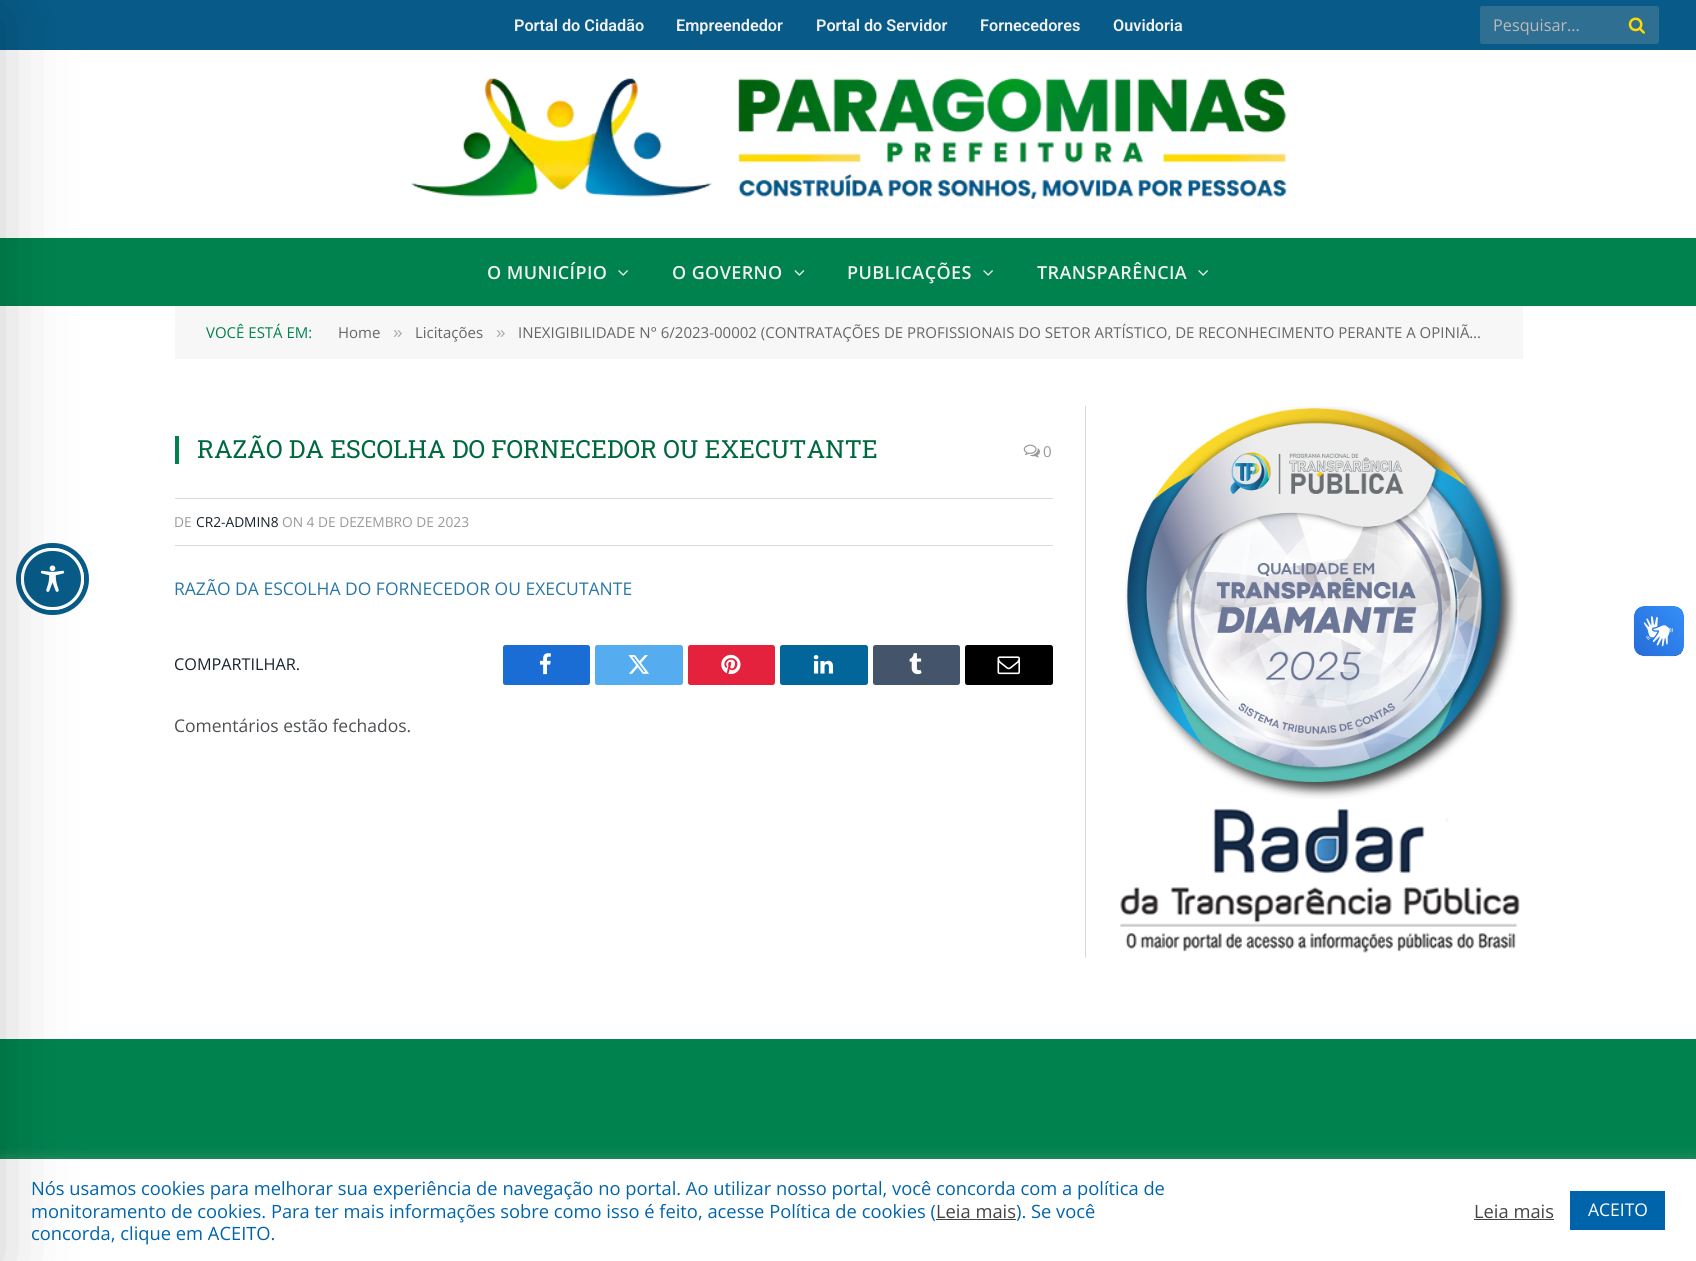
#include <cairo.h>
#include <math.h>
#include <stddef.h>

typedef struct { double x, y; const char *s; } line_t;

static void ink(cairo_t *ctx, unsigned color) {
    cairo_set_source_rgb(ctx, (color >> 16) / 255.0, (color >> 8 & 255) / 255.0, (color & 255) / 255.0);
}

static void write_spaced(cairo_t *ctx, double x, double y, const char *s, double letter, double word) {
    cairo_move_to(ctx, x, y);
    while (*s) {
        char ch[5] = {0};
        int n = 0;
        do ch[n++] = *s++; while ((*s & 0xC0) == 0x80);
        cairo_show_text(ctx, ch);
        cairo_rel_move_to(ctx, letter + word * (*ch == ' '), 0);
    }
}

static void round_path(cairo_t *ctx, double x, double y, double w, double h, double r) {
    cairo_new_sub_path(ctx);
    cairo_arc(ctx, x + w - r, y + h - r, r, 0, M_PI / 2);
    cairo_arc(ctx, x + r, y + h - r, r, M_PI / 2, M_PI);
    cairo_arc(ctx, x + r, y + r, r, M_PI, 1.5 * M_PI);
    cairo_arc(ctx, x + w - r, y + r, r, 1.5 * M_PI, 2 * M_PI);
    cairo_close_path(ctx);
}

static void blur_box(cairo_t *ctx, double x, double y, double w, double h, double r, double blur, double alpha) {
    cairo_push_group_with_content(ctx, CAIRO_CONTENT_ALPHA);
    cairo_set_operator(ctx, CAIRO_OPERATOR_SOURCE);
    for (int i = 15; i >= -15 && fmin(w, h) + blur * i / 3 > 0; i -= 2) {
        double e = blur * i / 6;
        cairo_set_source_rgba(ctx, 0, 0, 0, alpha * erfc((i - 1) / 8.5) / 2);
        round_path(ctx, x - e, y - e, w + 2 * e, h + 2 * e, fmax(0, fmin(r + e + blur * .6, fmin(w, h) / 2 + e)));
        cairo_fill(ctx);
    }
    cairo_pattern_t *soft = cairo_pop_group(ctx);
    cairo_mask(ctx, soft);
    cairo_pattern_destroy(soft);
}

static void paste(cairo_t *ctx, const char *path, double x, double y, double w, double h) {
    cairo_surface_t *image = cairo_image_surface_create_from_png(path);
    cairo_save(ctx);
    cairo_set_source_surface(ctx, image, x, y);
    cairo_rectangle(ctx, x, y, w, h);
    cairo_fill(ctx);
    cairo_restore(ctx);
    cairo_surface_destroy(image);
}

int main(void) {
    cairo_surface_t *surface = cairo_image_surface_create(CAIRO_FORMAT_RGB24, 1696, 1261);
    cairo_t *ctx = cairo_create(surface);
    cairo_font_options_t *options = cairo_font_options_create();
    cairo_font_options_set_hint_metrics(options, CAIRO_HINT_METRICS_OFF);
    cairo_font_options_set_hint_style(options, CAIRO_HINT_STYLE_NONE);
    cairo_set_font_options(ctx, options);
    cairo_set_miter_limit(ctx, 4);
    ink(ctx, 0xFFFFFF);
    cairo_paint(ctx);
    ink(ctx, 0x085B88);
    cairo_rectangle(ctx, 0, 0, 1696, 50);
    cairo_fill(ctx);
    ink(ctx, 0x00824E);
    cairo_rectangle(ctx, 0, 238, 1696, 68);
    cairo_fill(ctx);
    round_path(ctx, 18.5, 545.5, 68, 67, 33.5);
    ink(ctx, 0x085B88);
    cairo_set_line_width(ctx, 5);
    cairo_stroke(ctx);
    round_path(ctx, 22.5, 549.5, 60, 59, 29.5);
    cairo_fill_preserve(ctx);
    ink(ctx, 0xFFFFFF);
    cairo_set_line_width(ctx, 3);
    cairo_stroke(ctx);
    paste(ctx, "media/5.png", 40, 565, 25, 27);
    ink(ctx, 0x00824E);
    cairo_rectangle(ctx, 0, 1039, 1696, 120);
    cairo_fill(ctx);
    ink(ctx, 0xACABAB);
    blur_box(ctx, 0, 1158, 1696, 102, 0, 6, 0.3);
    ink(ctx, 0xFFFFFF);
    cairo_rectangle(ctx, 0, 1159, 1696, 102);
    cairo_fill(ctx);
    ink(ctx, 0x000000);
    blur_box(ctx, -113, 13, 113, 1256, 0, 37.5, 0.2);
    cairo_select_font_face(ctx, "Roboto SemiBold", CAIRO_FONT_SLANT_NORMAL, CAIRO_FONT_WEIGHT_NORMAL);
    cairo_set_font_size(ctx, 16.25);
    ink(ctx, 0xF0F0F0);
    {
        static const line_t items[] = {
            {514, 31, "Portal do Cidadão"},
            {676, 31, "Empreendedor"},
            {816, 31, "Portal do Servidor"},
            {980, 31, "Fornecedores"},
            {1113, 31, "Ouvidoria"},
        };
        for (size_t i = 0; i < sizeof items / sizeof *items; i++) {
            cairo_move_to(ctx, items[i].x, items[i].y);
            cairo_show_text(ctx, items[i].s);
        }
    }
    ink(ctx, 0x2F6F91);
    round_path(ctx, 1480, 6, 179, 38, 2.5);
    cairo_fill(ctx);
    cairo_select_font_face(ctx, "Open Sans", CAIRO_FONT_SLANT_NORMAL, CAIRO_FONT_WEIGHT_NORMAL);
    ink(ctx, 0xBBBBBB);
    cairo_move_to(ctx, 1493, 31);
    cairo_show_text(ctx, "Pesquisar...");
    paste(ctx, "media/1.png", 1628, 17, 17, 17);
    paste(ctx, "media/2.png", 411, 78, 876, 121);
    cairo_select_font_face(ctx, "Open Sans SemiBold", CAIRO_FONT_SLANT_NORMAL, CAIRO_FONT_WEIGHT_NORMAL);
    cairo_set_font_size(ctx, 18);
    ink(ctx, 0xF0F0F0);
    write_spaced(ctx, 487, 279, "O MUNICÍPIO", 0.4, 0);
    paste(ctx, "media/3.png", 618, 270, 10, 6);
    write_spaced(ctx, 672, 279, "O GOVERNO", 0.4, 0);
    paste(ctx, "media/4.png", 794, 270, 11, 6);
    write_spaced(ctx, 847, 279, "PUBLICAÇÕES", 0.4, 0);
    paste(ctx, "media/3.png", 983, 270, 10, 6);
    write_spaced(ctx, 1037, 279, "TRANSPARÊNCIA", 0.4, 0);
    paste(ctx, "media/3.png", 1198, 270, 10, 6);
    ink(ctx, 0xF7F7F7);
    cairo_rectangle(ctx, 175, 306, 1348, 53);
    cairo_fill(ctx);
    cairo_select_font_face(ctx, "Open Sans", CAIRO_FONT_SLANT_NORMAL, CAIRO_FONT_WEIGHT_NORMAL);
    cairo_set_font_size(ctx, 15);
    ink(ctx, 0x00824E);
    cairo_move_to(ctx, 206, 338);
    cairo_show_text(ctx, "VOCÊ ESTÁ EM:");
    ink(ctx, 0x666666);
    cairo_move_to(ctx, 338, 338);
    cairo_show_text(ctx, "Home");
    cairo_select_font_face(ctx, "Liberation Sans", CAIRO_FONT_SLANT_NORMAL, CAIRO_FONT_WEIGHT_NORMAL);
    cairo_set_font_size(ctx, 17);
    ink(ctx, 0xA2AAB2);
    cairo_move_to(ctx, 393, 338);
    cairo_show_text(ctx, "»");
    cairo_select_font_face(ctx, "Open Sans", CAIRO_FONT_SLANT_NORMAL, CAIRO_FONT_WEIGHT_NORMAL);
    cairo_set_font_size(ctx, 15);
    ink(ctx, 0x666666);
    cairo_move_to(ctx, 415, 338);
    cairo_show_text(ctx, "Licitações");
    cairo_select_font_face(ctx, "Liberation Sans", CAIRO_FONT_SLANT_NORMAL, CAIRO_FONT_WEIGHT_NORMAL);
    cairo_set_font_size(ctx, 17);
    ink(ctx, 0xA2AAB2);
    cairo_move_to(ctx, 496, 338);
    cairo_show_text(ctx, "»");
    cairo_select_font_face(ctx, "Open Sans", CAIRO_FONT_SLANT_NORMAL, CAIRO_FONT_WEIGHT_NORMAL);
    cairo_set_font_size(ctx, 15);
    ink(ctx, 0x666666);
    cairo_move_to(ctx, 518, 338);
    cairo_show_text(ctx, "INEXIGIBILIDADE N° 6/2023-00002 (CONTRATAÇÕES DE PROFISSIONAIS DO SETOR ARTÍSTICO, DE RECONHECIMENTO PERANTE A OPINIÃ…");
    ink(ctx, 0x00824E);
    cairo_rectangle(ctx, 175, 436, 4, 28);
    cairo_fill(ctx);
    cairo_select_font_face(ctx, "Roboto Slab", CAIRO_FONT_SLANT_NORMAL, CAIRO_FONT_WEIGHT_NORMAL);
    cairo_set_font_size(ctx, 25);
    ink(ctx, 0x00683E);
    cairo_move_to(ctx, 197, 458);
    cairo_show_text(ctx, "RAZÃO DA ESCOLHA DO FORNECEDOR OU EXECUTANTE");
    paste(ctx, "media/6.png", 1023, 444, 17, 14);
    cairo_select_font_face(ctx, "Open Sans", CAIRO_FONT_SLANT_NORMAL, CAIRO_FONT_WEIGHT_NORMAL);
    cairo_set_font_size(ctx, 15);
    ink(ctx, 0x999999);
    cairo_move_to(ctx, 1043, 457);
    cairo_show_text(ctx, "0");
    ink(ctx, 0xD9D9D9);
    cairo_rectangle(ctx, 175, 498, 878, 1);
    cairo_fill(ctx);
    cairo_rectangle(ctx, 175, 545, 878, 1);
    cairo_fill(ctx);
    cairo_set_font_size(ctx, 13.75);
    ink(ctx, 0x999999);
    cairo_move_to(ctx, 174, 527);
    cairo_show_text(ctx, "DE");
    ink(ctx, 0x19232D);
    cairo_move_to(ctx, 196, 527);
    cairo_show_text(ctx, "CR2-ADMIN8");
    ink(ctx, 0x999999);
    cairo_move_to(ctx, 282, 527);
    cairo_show_text(ctx, "ON 4 DE DEZEMBRO DE 2023");
    cairo_set_font_size(ctx, 17.5);
    ink(ctx, 0x2A77A7);
    cairo_move_to(ctx, 174, 595);
    cairo_show_text(ctx, "RAZÃO DA ESCOLHA DO FORNECEDOR OU EXECUTANTE");
    cairo_set_font_size(ctx, 16.25);
    ink(ctx, 0x19232D);
    cairo_move_to(ctx, 174, 670);
    cairo_show_text(ctx, "COMPARTILHAR.");
    ink(ctx, 0x1A6DD4);
    round_path(ctx, 503, 645, 87, 40, 2.5);
    cairo_fill(ctx);
    paste(ctx, "media/7.png", 539, 653, 12, 22);
    ink(ctx, 0x55ACEF);
    round_path(ctx, 595, 645, 88, 40, 2.5);
    cairo_fill(ctx);
    paste(ctx, "media/8.png", 628, 655, 21, 19);
    ink(ctx, 0xE4223E);
    round_path(ctx, 688, 645, 87, 40, 2.5);
    cairo_fill(ctx);
    paste(ctx, "media/9.png", 721, 654, 20, 21);
    ink(ctx, 0x02669A);
    round_path(ctx, 780, 645, 88, 40, 2.5);
    cairo_fill(ctx);
    paste(ctx, "media/10.png", 813, 655, 21, 19);
    ink(ctx, 0x44546B);
    round_path(ctx, 873, 645, 87, 40, 2.5);
    cairo_fill(ctx);
    paste(ctx, "media/11.png", 909, 653, 13, 22);
    ink(ctx, 0x000000);
    round_path(ctx, 965, 645, 88, 40, 2.5);
    cairo_fill(ctx);
    paste(ctx, "media/12.png", 997, 656, 23, 19);
    cairo_set_font_size(ctx, 17.5);
    ink(ctx, 0x4D5053);
    cairo_move_to(ctx, 174, 732);
    cairo_show_text(ctx, "Comentários estão fechados.");
    ink(ctx, 0xD9D9D9);
    cairo_rectangle(ctx, 1085, 406, 1, 552);
    cairo_fill(ctx);
    paste(ctx, "media/13.png", 1125, 406, 393, 393);
    paste(ctx, "media/14.png", 1120, 808, 400, 145);
    paste(ctx, "media/15.png", 1633, 606, 51, 51);
    paste(ctx, "media/16.png", 1634, 606, 50, 50);
    cairo_set_font_size(ctx, 18.33);
    ink(ctx, 0x0064AB);
    cairo_move_to(ctx, 31, 1195);
    cairo_show_text(ctx, "Nós usamos cookies para melhorar sua experiência de navegação no portal. Ao utilizar nosso portal, você concorda com a política de");
    cairo_move_to(ctx, 31, 1218);
    cairo_show_text(ctx, "monitoramento de cookies. Para ter mais informações sobre como isso é feito, acesse Política de cookies (");
    ink(ctx, 0x444444);
    cairo_move_to(ctx, 936, 1218);
    cairo_show_text(ctx, "Leia mais");
    cairo_rectangle(ctx, 936, 1219, 80, 1);
    cairo_fill(ctx);
    ink(ctx, 0x0064AB);
    cairo_move_to(ctx, 1016, 1218);
    cairo_show_text(ctx, "). Se você");
    cairo_move_to(ctx, 31, 1240);
    cairo_show_text(ctx, "concorda, clique em ACEITO.");
    ink(ctx, 0x444444);
    cairo_move_to(ctx, 1474, 1218);
    cairo_show_text(ctx, "Leia mais");
    cairo_rectangle(ctx, 1474, 1219, 80, 1);
    cairo_fill(ctx);
    ink(ctx, 0x0064AB);
    cairo_rectangle(ctx, 1570, 1191, 95, 39);
    cairo_fill(ctx);
    cairo_set_font_size(ctx, 17.5);
    ink(ctx, 0xFFFFFF);
    cairo_move_to(ctx, 1588, 1216);
    cairo_show_text(ctx, "ACEITO");
    cairo_surface_write_to_png(surface, "image.png");
    cairo_font_options_destroy(options);
    cairo_destroy(ctx);
    cairo_surface_destroy(surface);
    return 0;
}
